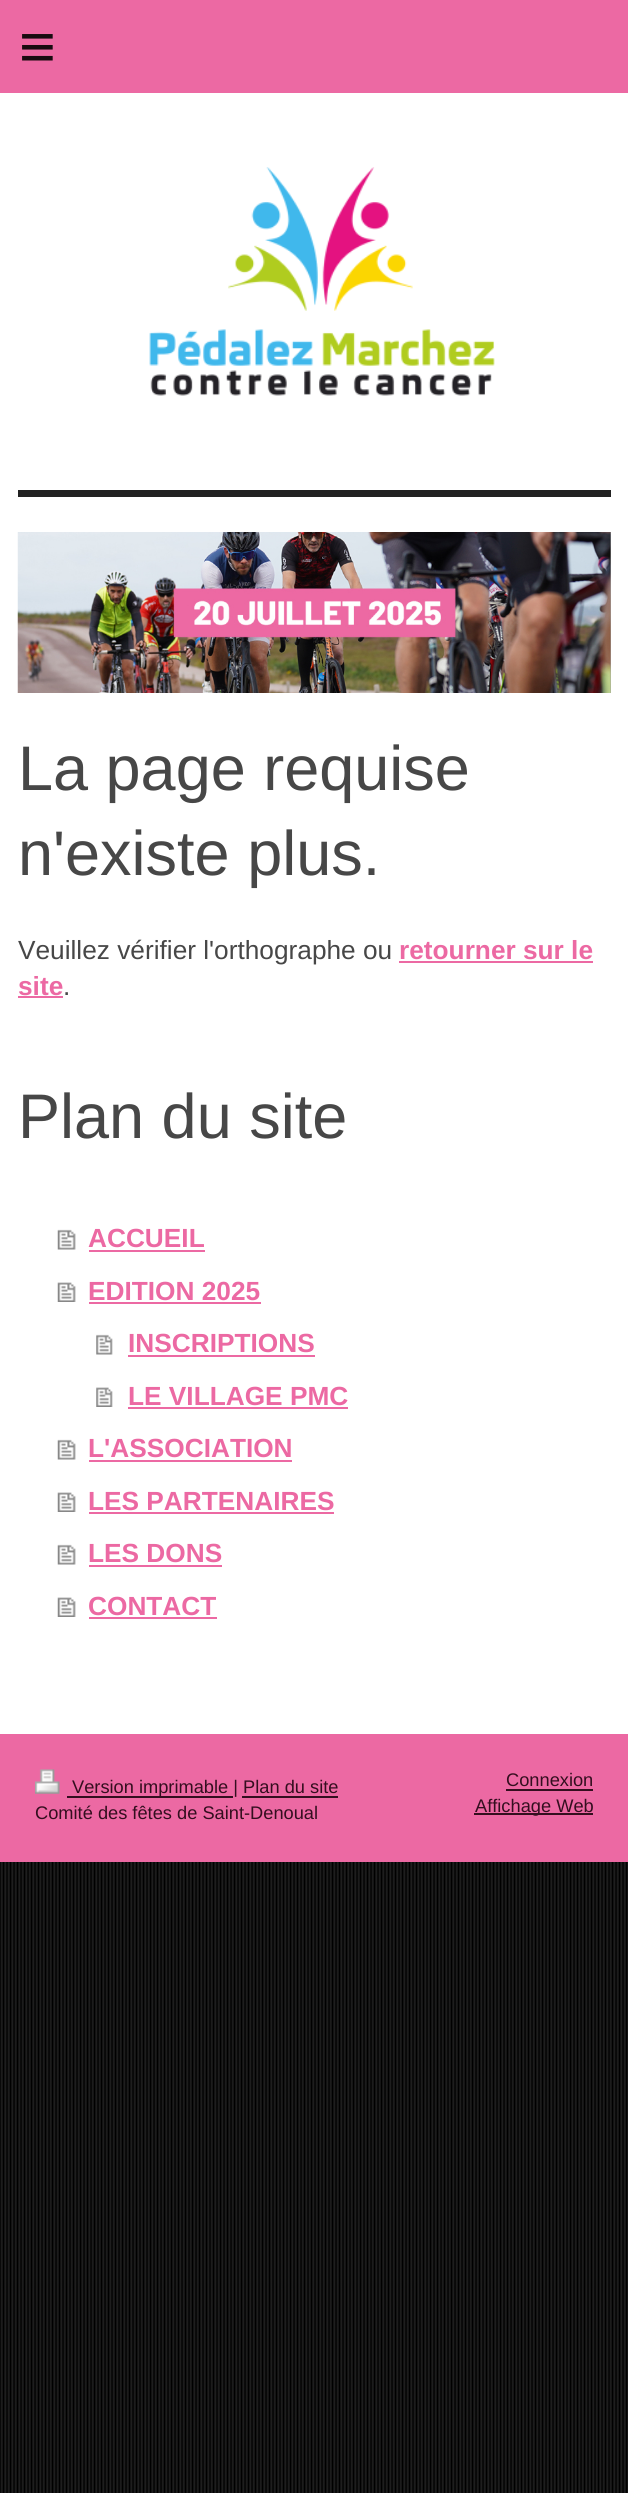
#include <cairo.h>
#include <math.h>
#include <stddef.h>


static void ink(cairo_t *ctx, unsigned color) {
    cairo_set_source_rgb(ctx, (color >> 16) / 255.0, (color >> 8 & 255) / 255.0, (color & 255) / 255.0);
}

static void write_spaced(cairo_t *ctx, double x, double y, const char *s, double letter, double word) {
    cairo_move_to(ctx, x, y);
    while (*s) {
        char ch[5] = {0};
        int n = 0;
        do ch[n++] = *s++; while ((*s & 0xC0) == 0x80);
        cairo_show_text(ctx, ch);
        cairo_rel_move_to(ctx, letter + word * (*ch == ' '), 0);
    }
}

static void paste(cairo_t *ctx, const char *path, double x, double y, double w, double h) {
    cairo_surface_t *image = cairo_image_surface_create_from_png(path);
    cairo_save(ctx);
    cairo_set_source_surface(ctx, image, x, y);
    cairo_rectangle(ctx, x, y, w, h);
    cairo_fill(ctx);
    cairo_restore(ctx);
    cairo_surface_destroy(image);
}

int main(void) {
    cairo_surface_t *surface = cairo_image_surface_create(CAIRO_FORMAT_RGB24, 628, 2493);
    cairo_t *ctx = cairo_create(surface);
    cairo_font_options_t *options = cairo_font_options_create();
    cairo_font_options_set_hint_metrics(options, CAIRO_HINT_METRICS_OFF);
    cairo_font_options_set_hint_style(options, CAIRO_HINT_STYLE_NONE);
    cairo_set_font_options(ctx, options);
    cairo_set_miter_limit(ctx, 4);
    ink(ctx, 0x222222);
    cairo_paint(ctx);
    paste(ctx, "media/1.png", 0, 1862, 628, 631);
    ink(ctx, 0xEC69A3);
    cairo_rectangle(ctx, 0, 0, 628, 93);
    cairo_fill(ctx);
    cairo_select_font_face(ctx, "Liberation Sans", CAIRO_FONT_SLANT_NORMAL, CAIRO_FONT_WEIGHT_NORMAL);
    cairo_set_font_size(ctx, 63);
    ink(ctx, 0x180B10);
    write_spaced(ctx, 19, 68, "≡", 18, 0);
    ink(ctx, 0xFFFFFF);
    cairo_rectangle(ctx, 0, 93, 628, 1641);
    cairo_fill(ctx);
    paste(ctx, "media/2.png", 149, 167, 346, 229);
    ink(ctx, 0x222222);
    cairo_rectangle(ctx, 18, 490, 593, 7);
    cairo_fill(ctx);
    ink(ctx, 0xA0A0A0);
    cairo_rectangle(ctx, 610, 532, 1, 161);
    cairo_fill(ctx);
    paste(ctx, "media/3.png", 17, 532, 594, 161);
    ink(ctx, 0x474747);
    cairo_move_to(ctx, 18, 790);
    cairo_show_text(ctx, "La page requise");
    cairo_move_to(ctx, 18, 875);
    cairo_show_text(ctx, "n'existe plus.");
    cairo_set_font_size(ctx, 26.25);
    cairo_move_to(ctx, 18, 959);
    cairo_show_text(ctx, "Veuillez vérifier l'orthographe ou");
    cairo_select_font_face(ctx, "Liberation Sans", CAIRO_FONT_SLANT_NORMAL, CAIRO_FONT_WEIGHT_BOLD);
    ink(ctx, 0xEC69A3);
    cairo_move_to(ctx, 399, 959);
    cairo_show_text(ctx, "retourner sur le");
    cairo_rectangle(ctx, 399, 961, 194, 2);
    cairo_fill(ctx);
    cairo_move_to(ctx, 18, 995);
    cairo_show_text(ctx, "site");
    cairo_rectangle(ctx, 18, 996, 45, 2);
    cairo_fill(ctx);
    cairo_select_font_face(ctx, "Liberation Sans", CAIRO_FONT_SLANT_NORMAL, CAIRO_FONT_WEIGHT_NORMAL);
    ink(ctx, 0x474747);
    cairo_move_to(ctx, 63, 995);
    cairo_show_text(ctx, ".");
    cairo_set_font_size(ctx, 63);
    cairo_move_to(ctx, 18, 1138);
    cairo_show_text(ctx, "Plan du site");
    paste(ctx, "media/4.png", 57, 1229, 19, 21);
    cairo_select_font_face(ctx, "Liberation Sans", CAIRO_FONT_SLANT_NORMAL, CAIRO_FONT_WEIGHT_BOLD);
    cairo_set_font_size(ctx, 26.25);
    ink(ctx, 0xEC69A3);
    cairo_move_to(ctx, 88, 1247);
    cairo_show_text(ctx, "ACCUEIL");
    cairo_rectangle(ctx, 89, 1250, 116, 2);
    cairo_fill(ctx);
    paste(ctx, "media/5.png", 57, 1282, 19, 20);
    cairo_move_to(ctx, 88, 1300);
    cairo_show_text(ctx, "EDITION 2025");
    cairo_rectangle(ctx, 89, 1302, 172, 2);
    cairo_fill(ctx);
    paste(ctx, "media/6.png", 96, 1334, 17, 21);
    cairo_move_to(ctx, 128, 1352);
    cairo_show_text(ctx, "INSCRIPTIONS");
    cairo_rectangle(ctx, 128, 1355, 187, 2);
    cairo_fill(ctx);
    paste(ctx, "media/7.png", 96, 1387, 17, 20);
    cairo_move_to(ctx, 128, 1405);
    cairo_show_text(ctx, "LE VILLAGE PMC");
    cairo_rectangle(ctx, 128, 1407, 220, 2);
    cairo_fill(ctx);
    paste(ctx, "media/4.png", 57, 1439, 19, 21);
    cairo_move_to(ctx, 88, 1457);
    cairo_show_text(ctx, "L'ASSOCIATION");
    cairo_rectangle(ctx, 89, 1460, 203, 2);
    cairo_fill(ctx);
    paste(ctx, "media/5.png", 57, 1492, 19, 20);
    cairo_move_to(ctx, 88, 1510);
    cairo_show_text(ctx, "LES PARTENAIRES");
    cairo_rectangle(ctx, 89, 1512, 245, 2);
    cairo_fill(ctx);
    paste(ctx, "media/4.png", 57, 1544, 19, 21);
    cairo_move_to(ctx, 88, 1562);
    cairo_show_text(ctx, "LES DONS");
    cairo_rectangle(ctx, 89, 1565, 133, 2);
    cairo_fill(ctx);
    paste(ctx, "media/5.png", 57, 1597, 19, 20);
    cairo_move_to(ctx, 88, 1615);
    cairo_show_text(ctx, "CONTACT");
    cairo_rectangle(ctx, 89, 1617, 128, 2);
    cairo_fill(ctx);
    cairo_rectangle(ctx, 0, 1734, 628, 128);
    cairo_fill(ctx);
    paste(ctx, "media/8.png", 35, 1769, 25, 25);
    ink(ctx, 0x340E1F);
    cairo_rectangle(ctx, 67, 1796, 166, 2);
    cairo_fill(ctx);
    cairo_select_font_face(ctx, "Liberation Sans", CAIRO_FONT_SLANT_NORMAL, CAIRO_FONT_WEIGHT_NORMAL);
    cairo_set_font_size(ctx, 18.25);
    cairo_move_to(ctx, 72, 1793);
    cairo_show_text(ctx, "Version imprimable | Plan du site");
    cairo_rectangle(ctx, 242, 1796, 96, 2);
    cairo_fill(ctx);
    cairo_move_to(ctx, 35, 1819);
    cairo_show_text(ctx, "Comité des fêtes de Saint-Denoual");
    cairo_move_to(ctx, 506, 1786);
    cairo_show_text(ctx, "Connexion");
    cairo_rectangle(ctx, 506, 1789, 87, 2);
    cairo_fill(ctx);
    cairo_rectangle(ctx, 474, 1813, 119, 2);
    cairo_fill(ctx);
    cairo_move_to(ctx, 475, 1812);
    cairo_show_text(ctx, "Affichage Web");
    cairo_surface_write_to_png(surface, "image.png");
    cairo_font_options_destroy(options);
    cairo_destroy(ctx);
    cairo_surface_destroy(surface);
    return 0;
}
